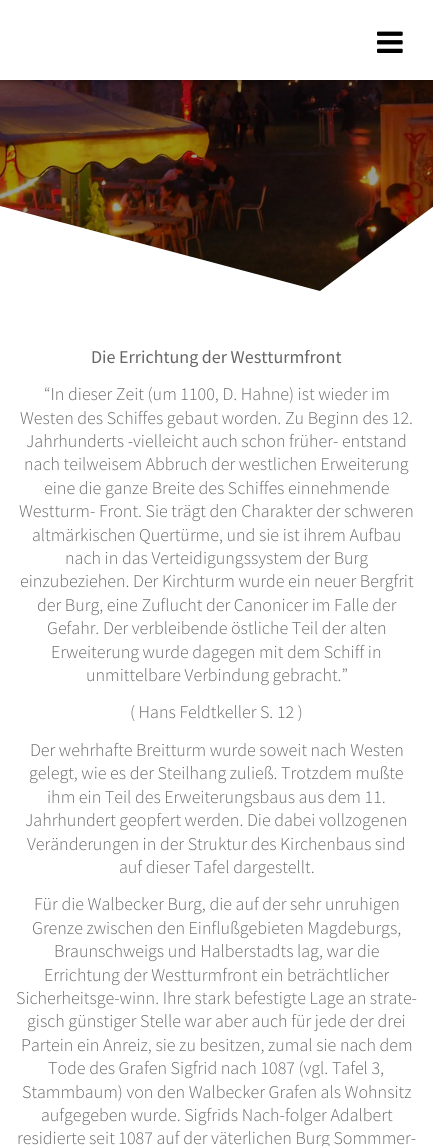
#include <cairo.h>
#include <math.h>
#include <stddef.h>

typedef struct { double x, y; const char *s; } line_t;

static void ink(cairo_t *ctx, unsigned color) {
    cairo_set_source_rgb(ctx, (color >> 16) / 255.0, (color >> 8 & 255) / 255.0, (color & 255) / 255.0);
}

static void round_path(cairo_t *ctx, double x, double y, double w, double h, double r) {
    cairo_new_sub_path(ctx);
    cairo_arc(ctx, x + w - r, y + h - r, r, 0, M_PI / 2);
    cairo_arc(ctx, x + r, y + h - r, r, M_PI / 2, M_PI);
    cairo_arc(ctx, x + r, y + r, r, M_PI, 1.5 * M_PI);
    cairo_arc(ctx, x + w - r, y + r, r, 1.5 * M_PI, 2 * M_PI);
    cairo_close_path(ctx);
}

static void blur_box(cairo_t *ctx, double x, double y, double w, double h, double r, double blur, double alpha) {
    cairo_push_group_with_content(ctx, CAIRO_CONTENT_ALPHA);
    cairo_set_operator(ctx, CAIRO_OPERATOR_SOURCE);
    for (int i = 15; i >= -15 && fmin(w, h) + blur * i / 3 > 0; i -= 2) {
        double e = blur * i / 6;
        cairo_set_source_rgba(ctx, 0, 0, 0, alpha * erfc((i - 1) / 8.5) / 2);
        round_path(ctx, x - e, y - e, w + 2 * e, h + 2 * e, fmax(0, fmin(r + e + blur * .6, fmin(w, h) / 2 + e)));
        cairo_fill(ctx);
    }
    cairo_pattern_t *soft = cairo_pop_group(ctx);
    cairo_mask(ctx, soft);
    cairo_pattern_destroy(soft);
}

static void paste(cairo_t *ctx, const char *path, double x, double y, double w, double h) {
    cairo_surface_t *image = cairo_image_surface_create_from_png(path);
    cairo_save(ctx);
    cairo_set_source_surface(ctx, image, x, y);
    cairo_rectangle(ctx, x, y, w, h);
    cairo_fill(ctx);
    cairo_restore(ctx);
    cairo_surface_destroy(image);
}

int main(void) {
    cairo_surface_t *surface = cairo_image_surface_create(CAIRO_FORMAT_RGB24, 433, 1146);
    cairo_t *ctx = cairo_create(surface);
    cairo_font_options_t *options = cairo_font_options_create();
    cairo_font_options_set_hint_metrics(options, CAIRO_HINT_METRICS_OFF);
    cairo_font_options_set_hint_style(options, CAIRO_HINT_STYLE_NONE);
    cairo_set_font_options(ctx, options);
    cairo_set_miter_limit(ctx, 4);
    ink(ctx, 0xFFFFFF);
    cairo_paint(ctx);
    paste(ctx, "media/2.png", 0, 80, 433, 211);
    ink(ctx, 0x000000);
    blur_box(ctx, -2, -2, 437, 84, 0, 2.5, 0.33);
    ink(ctx, 0xFFFFFF);
    cairo_rectangle(ctx, 0, 0, 433, 80);
    cairo_fill(ctx);
    paste(ctx, "media/1.png", 377, 31, 26, 22);
    cairo_new_path(ctx);
    cairo_move_to(ctx, 320, 291);
    cairo_line_to(ctx, 0, 206);
    cairo_line_to(ctx, 0, 296);
    cairo_line_to(ctx, 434, 296);
    cairo_line_to(ctx, 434, 206);
    cairo_close_path(ctx);
    cairo_fill(ctx);
    cairo_select_font_face(ctx, "Source Sans Pro", CAIRO_FONT_SLANT_NORMAL, CAIRO_FONT_WEIGHT_NORMAL);
    cairo_set_font_size(ctx, 18);
    ink(ctx, 0x666666);
    cairo_move_to(ctx, 91, 363);
    cairo_show_text(ctx, "Die Errichtung der Westturmfront");
    cairo_select_font_face(ctx, "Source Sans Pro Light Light", CAIRO_FONT_SLANT_NORMAL, CAIRO_FONT_WEIGHT_NORMAL);
    {
        static const line_t items[] = {
            {44, 400, "“In dieser Zeit (um 1100, D. Hahne) ist wieder im"},
            {20, 424, "Westen des Schiffes gebaut worden. Zu Beginn des 12."},
            {26, 447, "Jahrhunderts -vielleicht auch schon früher- entstand"},
            {24, 470, "nach teilweisem Abbruch der westlichen Erweiterung"},
            {44, 494, "eine die ganze Breite des Schiffes einnehmende"},
            {19, 517, "Westturm- Front. Sie trägt den Charakter der schweren"},
            {32, 541, "altmärkischen Quertürme, und sie ist ihrem Aufbau"},
            {65, 564, "nach in das Verteidigungssystem der Burg"},
            {20, 587, "einzubeziehen. Der Kirchturm wurde ein neuer Bergfrit"},
            {37, 611, "der Burg, eine Zuflucht der Canonicer im Falle der"},
            {47, 634, "Gefahr. Der verbleibende östliche Teil der alten"},
            {51, 658, "Erweiterung wurde dagegen mit dem Schiff in"},
            {86, 681, "unmittelbare Verbindung gebracht.”"},
            {130, 718, "( Hans Feldtkeller S. 12 )"},
            {30, 756, "Der wehrhafte Breitturm wurde soweit nach Westen"},
            {29, 779, "gelegt, wie es der Steilhang zuließ. Trotzdem mußte"},
            {47, 803, "ihm ein Teil des Erweiterungsbaus aus dem 11."},
            {25, 826, "Jahrhundert geopfert werden. Die dabei vollzogenen"},
            {27, 850, "Veränderungen in der Struktur des Kirchenbaus sind"},
            {119, 873, "auf dieser Tafel dargestellt."},
            {34, 910, "Für die Walbecker Burg, die auf der sehr unruhigen"},
            {32, 934, "Grenze zwischen den Einflußgebieten Magdeburgs,"},
            {54, 957, "Braunschweigs und Halberstadts lag, war die"},
            {44, 981, "Errichtung der Westturmfront ein beträchtlicher"},
            {16, 1004, "Sicherheitsge-winn. Ihre stark befestigte Lage an strate-"},
            {27, 1027, "gisch günstiger Stelle war aber auch für jede der drei"},
            {21, 1051, "Partein ein Anreiz, sie zu besitzen, zumal sie nach dem"},
            {48, 1074, "Tode des Grafen Sigfrid nach 1087 (vgl. Tafel 3,"},
            {22, 1098, "Stammbaum) von den Walbecker Grafen als Wohnsitz"},
            {41, 1121, "aufgegeben wurde. Sigfrids Nach-folger Adalbert"},
            {17, 1144, "residierte seit 1087 auf der väterlichen Burg Sommmer-"},
        };
        for (size_t i = 0; i < sizeof items / sizeof *items; i++) {
            cairo_move_to(ctx, items[i].x, items[i].y);
            cairo_show_text(ctx, items[i].s);
        }
    }
    cairo_surface_write_to_png(surface, "image.png");
    cairo_font_options_destroy(options);
    cairo_destroy(ctx);
    cairo_surface_destroy(surface);
    return 0;
}
